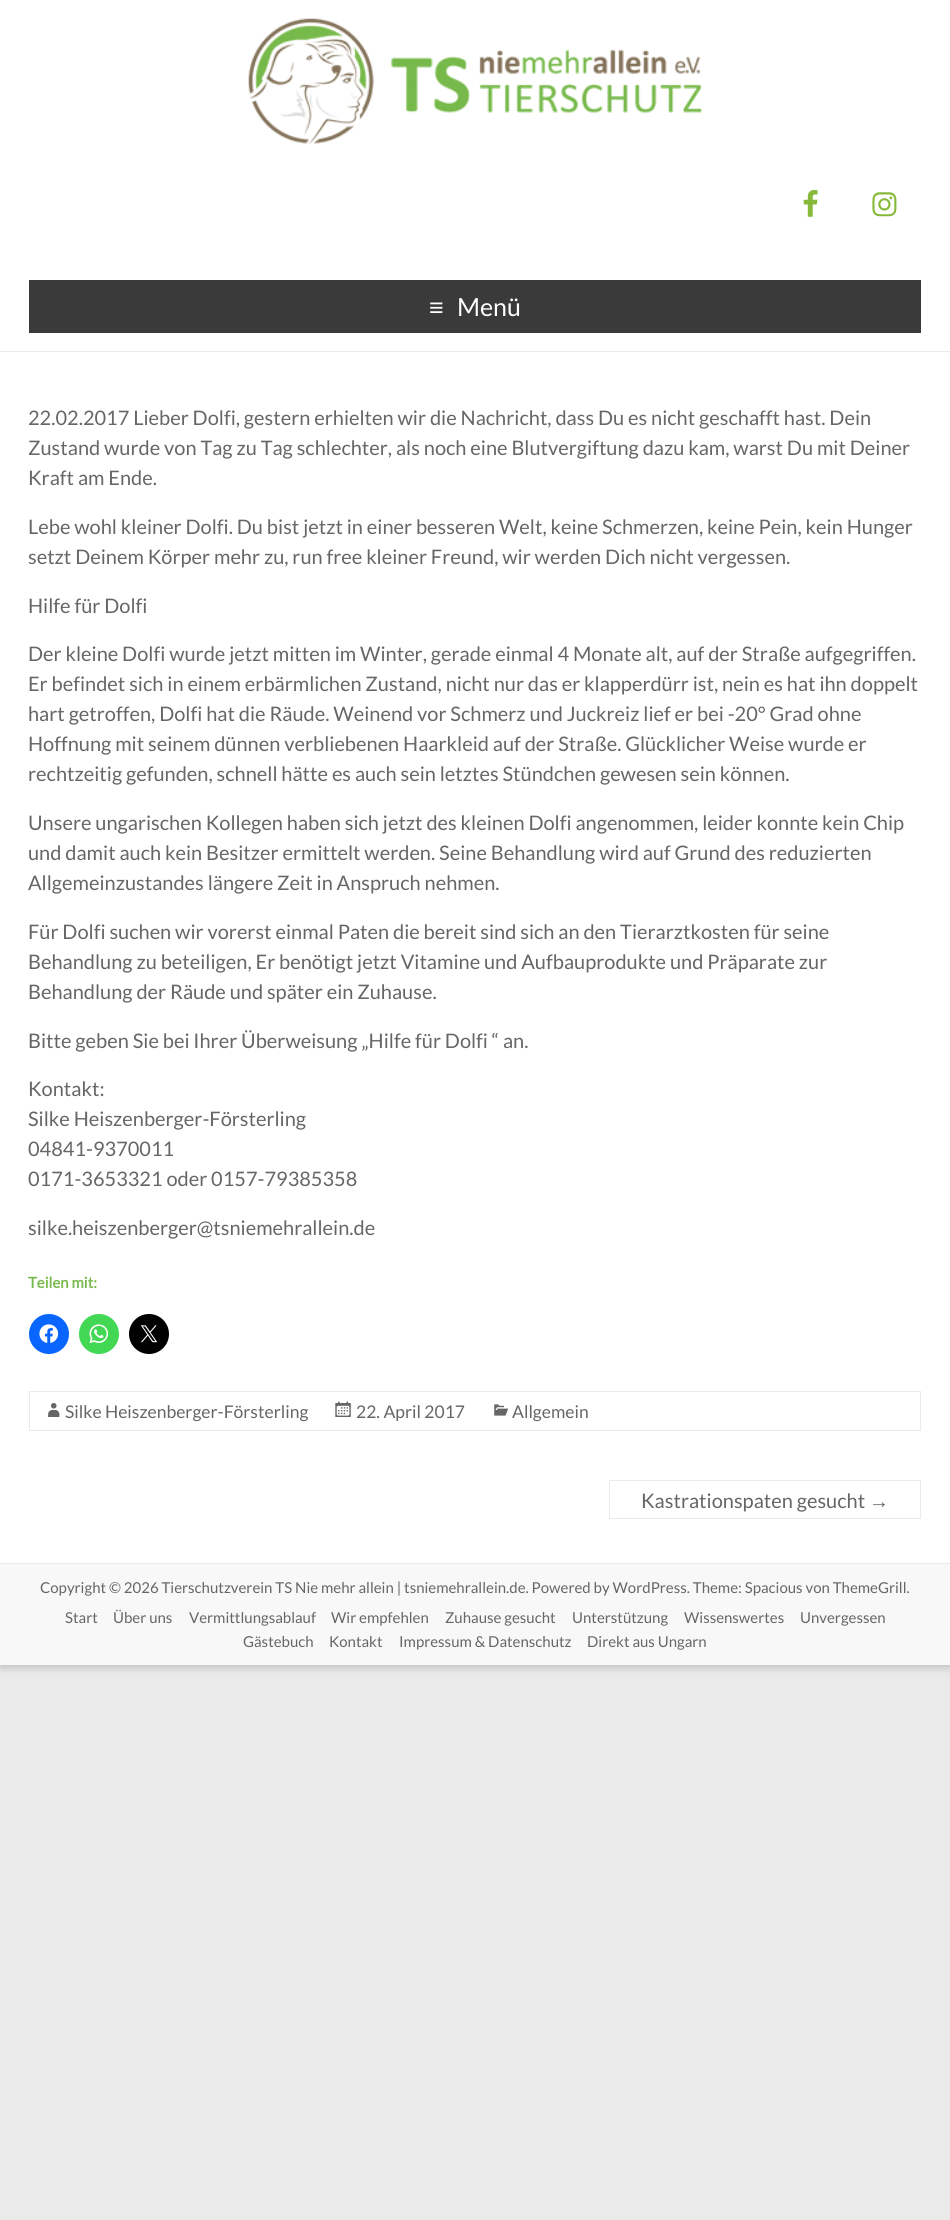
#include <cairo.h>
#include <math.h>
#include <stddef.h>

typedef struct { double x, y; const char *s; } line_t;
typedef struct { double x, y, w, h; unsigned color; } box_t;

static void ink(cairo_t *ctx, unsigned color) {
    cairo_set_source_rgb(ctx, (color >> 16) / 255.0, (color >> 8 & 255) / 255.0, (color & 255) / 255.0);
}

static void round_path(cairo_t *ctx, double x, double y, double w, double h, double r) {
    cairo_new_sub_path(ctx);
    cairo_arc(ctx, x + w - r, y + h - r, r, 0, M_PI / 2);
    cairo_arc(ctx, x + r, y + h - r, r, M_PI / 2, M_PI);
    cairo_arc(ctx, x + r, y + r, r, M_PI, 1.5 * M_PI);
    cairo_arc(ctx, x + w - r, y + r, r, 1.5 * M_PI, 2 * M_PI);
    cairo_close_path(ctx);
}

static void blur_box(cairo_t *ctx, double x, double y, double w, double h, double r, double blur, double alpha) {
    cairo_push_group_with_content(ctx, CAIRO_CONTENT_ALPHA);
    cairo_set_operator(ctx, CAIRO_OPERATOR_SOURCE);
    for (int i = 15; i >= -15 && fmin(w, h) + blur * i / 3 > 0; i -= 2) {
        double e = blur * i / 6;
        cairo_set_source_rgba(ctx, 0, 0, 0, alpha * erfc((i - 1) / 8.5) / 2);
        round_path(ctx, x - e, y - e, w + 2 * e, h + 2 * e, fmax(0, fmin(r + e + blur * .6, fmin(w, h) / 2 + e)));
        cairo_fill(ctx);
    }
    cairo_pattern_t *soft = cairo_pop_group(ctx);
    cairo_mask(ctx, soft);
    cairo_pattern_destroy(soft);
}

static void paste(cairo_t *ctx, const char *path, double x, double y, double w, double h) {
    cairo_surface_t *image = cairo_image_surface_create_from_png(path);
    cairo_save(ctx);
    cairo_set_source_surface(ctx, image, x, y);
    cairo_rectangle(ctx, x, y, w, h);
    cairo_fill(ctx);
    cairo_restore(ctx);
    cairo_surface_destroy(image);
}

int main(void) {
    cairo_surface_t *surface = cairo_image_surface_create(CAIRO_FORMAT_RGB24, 950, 2220);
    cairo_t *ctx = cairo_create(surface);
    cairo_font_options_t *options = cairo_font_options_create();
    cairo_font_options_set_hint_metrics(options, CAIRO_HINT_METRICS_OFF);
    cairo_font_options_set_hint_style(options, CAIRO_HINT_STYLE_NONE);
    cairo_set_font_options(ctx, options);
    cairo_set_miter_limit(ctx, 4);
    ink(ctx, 0xEAEAEA);
    cairo_paint(ctx);
    ink(ctx, 0x646464);
    blur_box(ctx, 0, 3, 950, 1665, 0, 4, 0.3);
    ink(ctx, 0xFFFFFF);
    cairo_rectangle(ctx, 0, 0, 950, 1563);
    cairo_fill(ctx);
    ink(ctx, 0xEAEAEA);
    cairo_rectangle(ctx, 0, 351, 950, 1);
    cairo_fill(ctx);
    paste(ctx, "media/1.png", 248, 18, 454, 126);
    paste(ctx, "media/2.png", 803, 190, 15, 27);
    paste(ctx, "media/3.png", 872, 192, 25, 25);
    ink(ctx, 0x3A3A3A);
    cairo_rectangle(ctx, 29, 280, 892, 53);
    cairo_fill(ctx);
    cairo_select_font_face(ctx, "Liberation Sans", CAIRO_FONT_SLANT_NORMAL, CAIRO_FONT_WEIGHT_NORMAL);
    cairo_set_font_size(ctx, 25);
    ink(ctx, 0xFFFFFF);
    cairo_move_to(ctx, 429, 316);
    cairo_show_text(ctx, "≡");
    cairo_select_font_face(ctx, "Lato", CAIRO_FONT_SLANT_NORMAL, CAIRO_FONT_WEIGHT_NORMAL);
    cairo_move_to(ctx, 457, 316);
    cairo_show_text(ctx, "Menü");
    cairo_set_font_size(ctx, 20);
    ink(ctx, 0x666666);
    {
        static const line_t items[] = {
            {28, 425, "22.02.2017 Lieber Dolfi, gestern erhielten wir die Nachricht, dass Du es nicht geschafft hast. Dein"},
            {28, 455, "Zustand wurde von Tag zu Tag schlechter, als noch eine Blutvergiftung dazu kam, warst Du mit Deiner"},
            {28, 485, "Kraft am Ende."},
            {28, 534, "Lebe wohl kleiner Dolfi. Du bist jetzt in einer besseren Welt, keine Schmerzen, keine Pein, kein Hunger"},
            {28, 564, "setzt Deinem Körper mehr zu, run free kleiner Freund, wir werden Dich nicht vergessen."},
            {28, 613, "Hilfe für Dolfi"},
            {28, 661, "Der kleine Dolfi wurde jetzt mitten im Winter, gerade einmal 4 Monate alt, auf der Straße aufgegriffen."},
            {28, 691, "Er befindet sich in einem erbärmlichen Zustand, nicht nur das er klapperdürr ist, nein es hat ihn doppelt"},
            {28, 721, "hart getroffen, Dolfi hat die Räude. Weinend vor Schmerz und Juckreiz lief er bei -20° Grad ohne"},
            {28, 751, "Hoffnung mit seinem dünnen verbliebenen Haarkleid auf der Straße. Glücklicher Weise wurde er"},
            {28, 781, "rechtzeitig gefunden, schnell hätte es auch sein letztes Stündchen gewesen sein können."},
            {28, 830, "Unsere ungarischen Kollegen haben sich jetzt des kleinen Dolfi angenommen, leider konnte kein Chip"},
            {28, 860, "und damit auch kein Besitzer ermittelt werden. Seine Behandlung wird auf Grund des reduzierten"},
            {28, 890, "Allgemeinzustandes längere Zeit in Anspruch nehmen."},
            {28, 939, "Für Dolfi suchen wir vorerst einmal Paten die bereit sind sich an den Tierarztkosten für seine"},
            {28, 969, "Behandlung zu beteiligen, Er benötigt jetzt Vitamine und Aufbauprodukte und Präparate zur"},
            {28, 999, "Behandlung der Räude und später ein Zuhause."},
            {28, 1048, "Bitte geben Sie bei Ihrer Überweisung „Hilfe für Dolfi “ an."},
            {28, 1096, "Kontakt:"},
            {28, 1126, "Silke Heiszenberger-Försterling"},
            {28, 1156, "04841-9370011"},
            {28, 1186, "0171-3653321 oder 0157-79385358"},
            {28, 1235, "silke.heiszenberger@tsniemehrallein.de"},
        };
        for (size_t i = 0; i < sizeof items / sizeof *items; i++) {
            cairo_move_to(ctx, items[i].x, items[i].y);
            cairo_show_text(ctx, items[i].s);
        }
    }
    cairo_select_font_face(ctx, "Lato", CAIRO_FONT_SLANT_NORMAL, CAIRO_FONT_WEIGHT_BOLD);
    cairo_set_font_size(ctx, 15);
    ink(ctx, 0x77B94B);
    cairo_move_to(ctx, 28, 1288);
    cairo_show_text(ctx, "Teilen mit:");
    ink(ctx, 0x0866FF);
    cairo_new_path(ctx);
    cairo_arc(ctx, 49, 1334, 20, 0, 2 * M_PI);
    cairo_fill(ctx);
    paste(ctx, "media/4.png", 39, 1324, 20, 19);
    ink(ctx, 0x43D854);
    cairo_arc(ctx, 99, 1334, 20, 0, 2 * M_PI);
    cairo_fill(ctx);
    paste(ctx, "media/5.png", 89, 1324, 20, 19);
    ink(ctx, 0x000000);
    cairo_arc(ctx, 149, 1334, 20, 0, 2 * M_PI);
    cairo_fill(ctx);
    paste(ctx, "media/6.png", 140, 1325, 18, 18);
    cairo_rectangle(ctx, 29.5, 1391.5, 891, 39);
    ink(ctx, 0xEAEAEA);
    cairo_set_line_width(ctx, 1);
    cairo_stroke(ctx);
    paste(ctx, "media/7.png", 48, 1403, 12, 14);
    cairo_select_font_face(ctx, "Lato", CAIRO_FONT_SLANT_NORMAL, CAIRO_FONT_WEIGHT_NORMAL);
    cairo_set_font_size(ctx, 17.5);
    ink(ctx, 0x666666);
    cairo_move_to(ctx, 65, 1418);
    cairo_show_text(ctx, "Silke Heiszenberger-Försterling");
    paste(ctx, "media/8.png", 335, 1401, 16, 16);
    cairo_move_to(ctx, 356, 1418);
    cairo_show_text(ctx, "22. April 2017");
    paste(ctx, "media/9.png", 494, 1404, 15, 12);
    cairo_move_to(ctx, 512, 1418);
    cairo_show_text(ctx, "Allgemein");
    cairo_set_font_size(ctx, 20);
    cairo_move_to(ctx, 641, 1508);
    cairo_show_text(ctx, "Kastrationspaten gesucht");
    {
        static const box_t items[] = {
            {609, 1480, 312, 1, 0xEAEAEA},
            {609, 1518, 260, 1, 0xEAEAEA},
            {609, 1480, 1, 39, 0xEAEAEA},
        };
        for (size_t i = 0; i < sizeof items / sizeof *items; i++) {
            ink(ctx, items[i].color);
            cairo_rectangle(ctx, items[i].x, items[i].y, items[i].w, items[i].h);
            cairo_fill(ctx);
        }
    }
    cairo_select_font_face(ctx, "Liberation Sans", CAIRO_FONT_SLANT_NORMAL, CAIRO_FONT_WEIGHT_NORMAL);
    ink(ctx, 0x666666);
    cairo_move_to(ctx, 869, 1508);
    cairo_show_text(ctx, "→");
    {
        static const box_t items[] = {
            {920, 1480, 1, 39, 0xEAEAEA},
            {869, 1518, 52, 1, 0xEAEAEA},
            {0, 1564, 950, 101, 0xF8F8F8},
            {0, 1563, 950, 1, 0xEAEAEA},
        };
        for (size_t i = 0; i < sizeof items / sizeof *items; i++) {
            ink(ctx, items[i].color);
            cairo_rectangle(ctx, items[i].x, items[i].y, items[i].w, items[i].h);
            cairo_fill(ctx);
        }
    }
    cairo_select_font_face(ctx, "Lato", CAIRO_FONT_SLANT_NORMAL, CAIRO_FONT_WEIGHT_NORMAL);
    cairo_set_font_size(ctx, 15);
    ink(ctx, 0x666666);
    {
        static const line_t items[] = {
            {40, 1593, "Copyright © 2026 Tierschutzverein TS Nie mehr allein | tsniemehrallein.de. Powered by WordPress. Theme: Spacious von ThemeGrill."},
            {65, 1623, "Start"},
            {113, 1623, "Über uns"},
            {189, 1623, "Vermittlungsablauf"},
            {331, 1623, "Wir empfehlen"},
            {445, 1623, "Zuhause gesucht"},
            {572, 1623, "Unterstützung"},
            {684, 1623, "Wissenswertes"},
            {800, 1623, "Unvergessen"},
            {243, 1647, "Gästebuch"},
            {329, 1647, "Kontakt"},
            {399, 1647, "Impressum & Datenschutz"},
            {587, 1647, "Direkt aus Ungarn"},
        };
        for (size_t i = 0; i < sizeof items / sizeof *items; i++) {
            cairo_move_to(ctx, items[i].x, items[i].y);
            cairo_show_text(ctx, items[i].s);
        }
    }
    cairo_surface_write_to_png(surface, "image.png");
    cairo_font_options_destroy(options);
    cairo_destroy(ctx);
    cairo_surface_destroy(surface);
    return 0;
}
